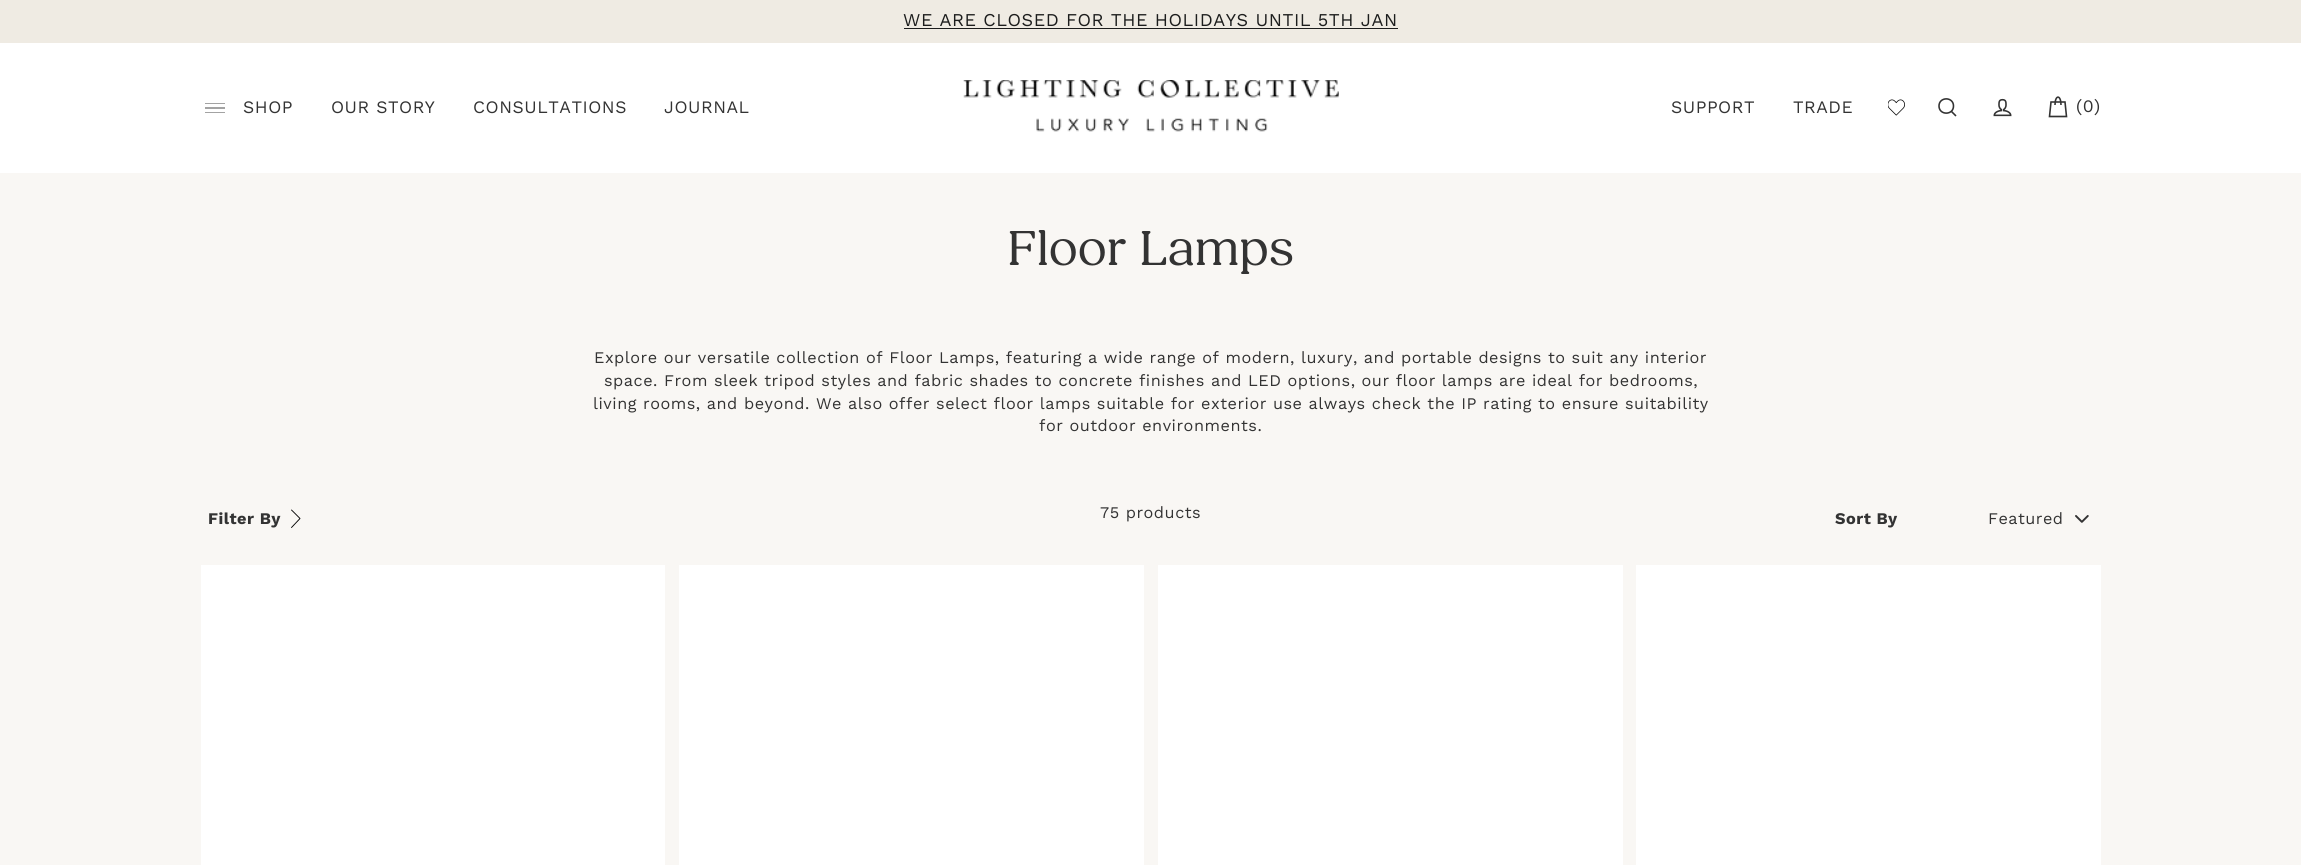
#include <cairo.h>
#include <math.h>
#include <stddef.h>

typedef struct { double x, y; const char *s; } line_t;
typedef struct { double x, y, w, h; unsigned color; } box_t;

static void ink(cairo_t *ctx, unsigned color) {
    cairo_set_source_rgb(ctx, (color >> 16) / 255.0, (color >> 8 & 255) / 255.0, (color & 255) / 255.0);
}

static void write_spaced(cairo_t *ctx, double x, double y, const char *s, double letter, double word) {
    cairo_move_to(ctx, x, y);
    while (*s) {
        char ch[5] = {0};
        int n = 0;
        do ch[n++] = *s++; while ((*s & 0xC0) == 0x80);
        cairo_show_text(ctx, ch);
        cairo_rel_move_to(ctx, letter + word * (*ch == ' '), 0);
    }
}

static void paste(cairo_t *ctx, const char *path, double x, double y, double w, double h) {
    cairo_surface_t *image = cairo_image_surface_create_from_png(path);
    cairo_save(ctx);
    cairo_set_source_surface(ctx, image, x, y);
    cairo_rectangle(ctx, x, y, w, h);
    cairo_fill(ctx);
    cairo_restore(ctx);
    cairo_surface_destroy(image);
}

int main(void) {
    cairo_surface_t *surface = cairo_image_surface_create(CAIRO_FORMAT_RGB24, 2301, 865);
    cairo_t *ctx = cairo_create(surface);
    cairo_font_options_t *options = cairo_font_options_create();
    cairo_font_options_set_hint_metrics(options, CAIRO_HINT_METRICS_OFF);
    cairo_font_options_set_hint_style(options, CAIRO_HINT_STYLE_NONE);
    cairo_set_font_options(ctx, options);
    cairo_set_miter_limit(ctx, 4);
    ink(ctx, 0xF9F7F4);
    cairo_paint(ctx);
    ink(ctx, 0xEFEBE3);
    cairo_rectangle(ctx, 0, 0, 2301, 43);
    cairo_fill(ctx);
    cairo_select_font_face(ctx, "Work Sans", CAIRO_FONT_SLANT_NORMAL, CAIRO_FONT_WEIGHT_NORMAL);
    cairo_set_font_size(ctx, 18.05);
    ink(ctx, 0x1C1D1D);
    write_spaced(ctx, 903, 26, "WE ARE CLOSED FOR THE HOLIDAYS UNTIL 5TH JAN", 0.53, 0);
    cairo_rectangle(ctx, 904, 28, 494, 1);
    cairo_fill(ctx);
    ink(ctx, 0xFFFFFF);
    cairo_rectangle(ctx, 0, 43, 2301, 130);
    cairo_fill(ctx);
    cairo_save(ctx);
    cairo_rectangle(ctx, 205, 103, 20, 10);
    cairo_clip(ctx);
    cairo_new_path(ctx);
    cairo_move_to(ctx, 225, 103);
    cairo_line_to(ctx, 205, 103);
    cairo_move_to(ctx, 225, 108);
    cairo_line_to(ctx, 205, 108);
    cairo_move_to(ctx, 225, 113);
    cairo_line_to(ctx, 205, 113);
    ink(ctx, 0x333333);
    cairo_set_line_width(ctx, 0.9);
    cairo_stroke(ctx);
    cairo_restore(ctx);
    cairo_set_font_size(ctx, 17.5);
    ink(ctx, 0x333333);
    {
        static const line_t items[] = {
            {243, 113, "SHOP"},
            {331, 113, "OUR STORY"},
            {473, 113, "CONSULTATIONS"},
            {664, 113, "JOURNAL"},
        };
        for (size_t i = 0; i < sizeof items / sizeof *items; i++) {
            write_spaced(ctx, items[i].x, items[i].y, items[i].s, 0.53, 0);
        }
    }
    paste(ctx, "media/1.png", 963, 80, 376, 52);
    write_spaced(ctx, 1671, 113, "SUPPORT", 0.53, 0);
    write_spaced(ctx, 1793, 113, "TRADE", 0.53, 0);
    paste(ctx, "media/2.png", 1888, 99, 17, 17);
    cairo_new_path(ctx);
    cairo_move_to(ctx, 1953.5, 106);
    cairo_curve_to(ctx, 1953.5, 115.5, 1939, 115.5, 1939, 106);
    cairo_curve_to(ctx, 1939, 96.5, 1953.5, 96.5, 1953.5, 106);
    cairo_close_path(ctx);
    cairo_move_to(ctx, 1956, 116);
    cairo_line_to(ctx, 1951.5, 111.5);
    cairo_set_line_width(ctx, 1.6);
    cairo_stroke(ctx);
    paste(ctx, "media/3.png", 1993, 98, 19, 19);
    cairo_new_path(ctx);
    cairo_move_to(ctx, 2055, 105);
    cairo_curve_to(ctx, 2055, 94.5, 2061, 94.5, 2061, 105);
    cairo_move_to(ctx, 2051, 102);
    cairo_line_to(ctx, 2065, 102);
    cairo_line_to(ctx, 2066.5, 116.5);
    cairo_line_to(ctx, 2049.5, 116.5);
    cairo_close_path(ctx);
    cairo_stroke(ctx);
    write_spaced(ctx, 2076, 112, "(0)", 0.53, 0);
    cairo_select_font_face(ctx, "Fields", CAIRO_FONT_SLANT_NORMAL, CAIRO_FONT_WEIGHT_NORMAL);
    cairo_set_font_size(ctx, 50);
    cairo_move_to(ctx, 1007, 265);
    cairo_show_text(ctx, "Floor Lamps");
    cairo_select_font_face(ctx, "Work Sans", CAIRO_FONT_SLANT_NORMAL, CAIRO_FONT_WEIGHT_NORMAL);
    cairo_set_font_size(ctx, 16.25);
    {
        static const line_t items[] = {
            {594, 363, "Explore our versatile collection of Floor Lamps, featuring a wide range of modern, luxury, and portable designs to suit any interior"},
            {604, 386, "space. From sleek tripod styles and fabric shades to concrete finishes and LED options, our floor lamps are ideal for bedrooms,"},
            {593, 409, "living rooms, and beyond. We also offer select floor lamps suitable for exterior use always check the IP rating to ensure suitability"},
            {1039, 431, "for outdoor environments."},
        };
        for (size_t i = 0; i < sizeof items / sizeof *items; i++) {
            write_spaced(ctx, items[i].x, items[i].y, items[i].s, 0.53, 0);
        }
    }
    cairo_select_font_face(ctx, "Work Sans", CAIRO_FONT_SLANT_NORMAL, CAIRO_FONT_WEIGHT_BOLD);
    write_spaced(ctx, 208, 524, "Filter By", 0.5, 0);
    cairo_new_path(ctx);
    cairo_move_to(ctx, 291.5, 510);
    cairo_line_to(ctx, 300, 518.5);
    cairo_line_to(ctx, 291.5, 527.5);
    ink(ctx, 0x000000);
    cairo_set_line_width(ctx, 0.9);
    cairo_set_line_cap(ctx, CAIRO_LINE_CAP_ROUND);
    cairo_set_line_join(ctx, CAIRO_LINE_JOIN_ROUND);
    cairo_stroke(ctx);
    cairo_select_font_face(ctx, "Work Sans", CAIRO_FONT_SLANT_NORMAL, CAIRO_FONT_WEIGHT_NORMAL);
    ink(ctx, 0x333333);
    write_spaced(ctx, 1100, 518, "75 products", 0.53, 0);
    cairo_select_font_face(ctx, "Work Sans", CAIRO_FONT_SLANT_NORMAL, CAIRO_FONT_WEIGHT_BOLD);
    write_spaced(ctx, 1835, 524, "Sort By", 0.5, 0);
    paste(ctx, "media/4.png", 2075, 515, 14, 8);
    cairo_select_font_face(ctx, "Work Sans", CAIRO_FONT_SLANT_NORMAL, CAIRO_FONT_WEIGHT_NORMAL);
    write_spaced(ctx, 1988, 524, "Featured", 0.5, 0);
    {
        static const box_t items[] = {
            {201, 565, 464, 300, 0xFFFFFF},
            {679, 565, 465, 300, 0xFFFFFF},
            {1158, 565, 465, 300, 0xFFFFFF},
            {1636, 565, 465, 300, 0xFFFFFF},
        };
        for (size_t i = 0; i < sizeof items / sizeof *items; i++) {
            ink(ctx, items[i].color);
            cairo_rectangle(ctx, items[i].x, items[i].y, items[i].w, items[i].h);
            cairo_fill(ctx);
        }
    }
    cairo_surface_write_to_png(surface, "image.png");
    cairo_font_options_destroy(options);
    cairo_destroy(ctx);
    cairo_surface_destroy(surface);
    return 0;
}
